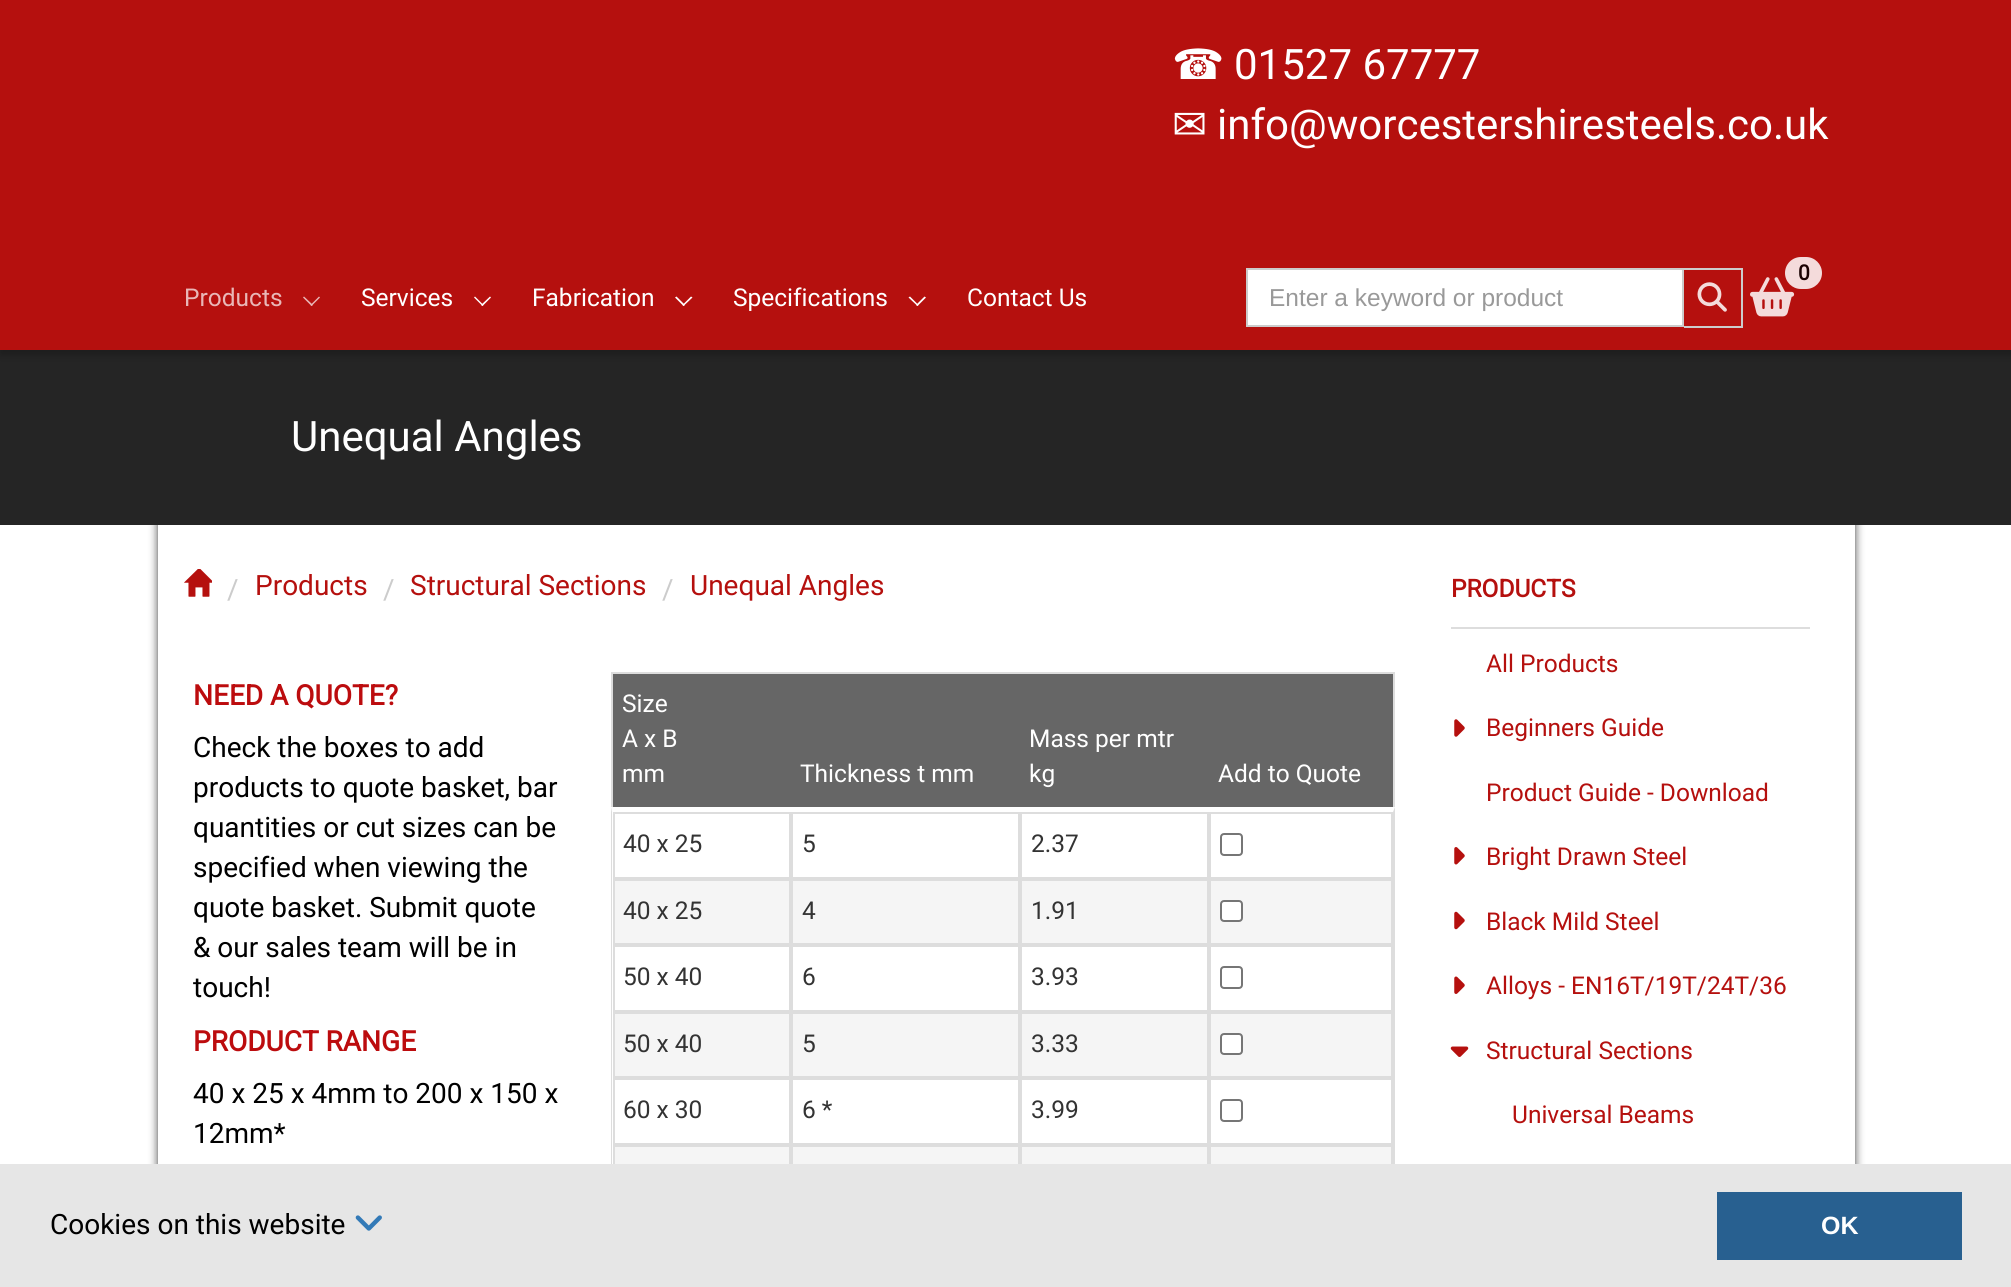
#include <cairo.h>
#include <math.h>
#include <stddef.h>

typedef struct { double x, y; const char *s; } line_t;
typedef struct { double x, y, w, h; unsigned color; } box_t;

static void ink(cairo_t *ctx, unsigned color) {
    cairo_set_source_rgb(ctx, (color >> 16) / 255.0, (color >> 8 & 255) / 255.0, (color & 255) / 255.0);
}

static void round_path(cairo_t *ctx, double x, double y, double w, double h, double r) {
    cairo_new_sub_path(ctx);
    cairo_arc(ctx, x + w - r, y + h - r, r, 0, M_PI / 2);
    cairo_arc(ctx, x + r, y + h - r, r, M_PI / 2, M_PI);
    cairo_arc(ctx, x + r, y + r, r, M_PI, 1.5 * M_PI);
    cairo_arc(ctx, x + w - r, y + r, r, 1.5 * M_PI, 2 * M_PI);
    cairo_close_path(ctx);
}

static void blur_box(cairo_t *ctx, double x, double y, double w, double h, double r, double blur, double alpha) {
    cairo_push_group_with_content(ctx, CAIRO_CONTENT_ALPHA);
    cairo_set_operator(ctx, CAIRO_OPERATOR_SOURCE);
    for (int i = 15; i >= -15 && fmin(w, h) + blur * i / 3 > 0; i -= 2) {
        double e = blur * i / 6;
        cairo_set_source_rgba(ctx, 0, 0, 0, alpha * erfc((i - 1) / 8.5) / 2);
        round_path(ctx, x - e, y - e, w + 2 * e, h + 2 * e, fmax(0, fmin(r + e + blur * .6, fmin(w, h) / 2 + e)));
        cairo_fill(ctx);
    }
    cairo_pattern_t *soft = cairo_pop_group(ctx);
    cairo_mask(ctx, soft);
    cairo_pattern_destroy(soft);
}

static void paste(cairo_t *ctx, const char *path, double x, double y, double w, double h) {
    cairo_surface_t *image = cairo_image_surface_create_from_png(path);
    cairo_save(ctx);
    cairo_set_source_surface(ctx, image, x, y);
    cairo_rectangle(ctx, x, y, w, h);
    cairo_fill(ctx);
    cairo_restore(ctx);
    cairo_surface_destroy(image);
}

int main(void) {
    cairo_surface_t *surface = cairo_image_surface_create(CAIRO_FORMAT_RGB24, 2011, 1287);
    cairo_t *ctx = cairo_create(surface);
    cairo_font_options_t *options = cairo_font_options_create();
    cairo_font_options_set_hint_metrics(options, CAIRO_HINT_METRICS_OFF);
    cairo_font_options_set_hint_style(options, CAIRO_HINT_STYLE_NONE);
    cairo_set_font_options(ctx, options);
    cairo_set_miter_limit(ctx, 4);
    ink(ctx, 0xFFFFFF);
    cairo_paint(ctx);
    cairo_save(ctx);
    cairo_set_fill_rule(ctx, CAIRO_FILL_RULE_EVEN_ODD);
    cairo_new_path(ctx);
    cairo_move_to(ctx, 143, 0);
    cairo_line_to(ctx, 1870, 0);
    cairo_line_to(ctx, 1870, 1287);
    cairo_line_to(ctx, 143, 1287);
    cairo_close_path(ctx);
    cairo_move_to(ctx, 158, 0);
    cairo_line_to(ctx, 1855, 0);
    cairo_line_to(ctx, 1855, 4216);
    cairo_line_to(ctx, 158, 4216);
    cairo_close_path(ctx);
    cairo_clip(ctx);
    ink(ctx, 0x000000);
    blur_box(ctx, 158, 0, 1697, 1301, 0, 4.5, 0.75);
    cairo_restore(ctx);
    ink(ctx, 0x252525);
    cairo_rectangle(ctx, 0, 350, 2011, 175);
    cairo_fill(ctx);
    ink(ctx, 0x000000);
    blur_box(ctx, 0, 5, 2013, 350, 0, 4.5, 0.24);
    ink(ctx, 0xB5100E);
    cairo_rectangle(ctx, 0, 0, 2011, 350);
    cairo_fill(ctx);
    cairo_select_font_face(ctx, "DejaVu Sans", CAIRO_FONT_SLANT_NORMAL, CAIRO_FONT_WEIGHT_NORMAL);
    cairo_set_font_size(ctx, 42);
    ink(ctx, 0xFFFFFF);
    cairo_move_to(ctx, 1172, 79);
    cairo_show_text(ctx, "☎");
    cairo_select_font_face(ctx, "Roboto", CAIRO_FONT_SLANT_NORMAL, CAIRO_FONT_WEIGHT_NORMAL);
    cairo_move_to(ctx, 1234, 79);
    cairo_show_text(ctx, "01527 67777");
    cairo_select_font_face(ctx, "DejaVu Sans", CAIRO_FONT_SLANT_NORMAL, CAIRO_FONT_WEIGHT_NORMAL);
    cairo_move_to(ctx, 1172, 139);
    cairo_show_text(ctx, "✉");
    cairo_select_font_face(ctx, "Roboto", CAIRO_FONT_SLANT_NORMAL, CAIRO_FONT_WEIGHT_NORMAL);
    cairo_move_to(ctx, 1217, 139);
    cairo_show_text(ctx, "info@worcestershiresteels.co.uk");
    cairo_set_font_size(ctx, 24.5);
    ink(ctx, 0xE9B7B7);
    cairo_move_to(ctx, 184, 306);
    cairo_show_text(ctx, "Products");
    cairo_new_path(ctx);
    cairo_move_to(ctx, 311.5, 306);
    cairo_line_to(ctx, 303, 297.5);
    cairo_line_to(ctx, 304, 296.5);
    cairo_line_to(ctx, 313, 305);
    cairo_close_path(ctx);
    cairo_fill(ctx);
    cairo_new_path(ctx);
    cairo_move_to(ctx, 311.5, 306);
    cairo_line_to(ctx, 310.5, 305);
    cairo_line_to(ctx, 319, 296.5);
    cairo_line_to(ctx, 320, 297.5);
    cairo_close_path(ctx);
    cairo_fill(ctx);
    ink(ctx, 0xFFFFFF);
    cairo_move_to(ctx, 361, 306);
    cairo_show_text(ctx, "Services");
    cairo_new_path(ctx);
    cairo_move_to(ctx, 482.5, 306);
    cairo_line_to(ctx, 474, 297.5);
    cairo_line_to(ctx, 475, 296.5);
    cairo_line_to(ctx, 483.5, 305);
    cairo_close_path(ctx);
    cairo_fill(ctx);
    cairo_new_path(ctx);
    cairo_move_to(ctx, 482.5, 306);
    cairo_line_to(ctx, 481, 305);
    cairo_line_to(ctx, 490, 296.5);
    cairo_line_to(ctx, 491, 297.5);
    cairo_close_path(ctx);
    cairo_fill(ctx);
    cairo_move_to(ctx, 532, 306);
    cairo_show_text(ctx, "Fabrication");
    cairo_new_path(ctx);
    cairo_move_to(ctx, 683.5, 306);
    cairo_line_to(ctx, 675, 297.5);
    cairo_line_to(ctx, 676.5, 296.5);
    cairo_line_to(ctx, 685, 305);
    cairo_close_path(ctx);
    cairo_fill(ctx);
    cairo_new_path(ctx);
    cairo_move_to(ctx, 683.5, 306);
    cairo_line_to(ctx, 682.5, 305);
    cairo_line_to(ctx, 691, 296.5);
    cairo_line_to(ctx, 692.5, 297.5);
    cairo_close_path(ctx);
    cairo_fill(ctx);
    cairo_move_to(ctx, 733, 306);
    cairo_show_text(ctx, "Specifications");
    cairo_new_path(ctx);
    cairo_move_to(ctx, 917.5, 306);
    cairo_line_to(ctx, 908.5, 297.5);
    cairo_line_to(ctx, 910, 296.5);
    cairo_line_to(ctx, 918.5, 305);
    cairo_close_path(ctx);
    cairo_fill(ctx);
    cairo_new_path(ctx);
    cairo_move_to(ctx, 917.5, 306);
    cairo_line_to(ctx, 916, 305);
    cairo_line_to(ctx, 924.5, 296.5);
    cairo_line_to(ctx, 926, 297.5);
    cairo_close_path(ctx);
    cairo_fill(ctx);
    cairo_move_to(ctx, 967, 306);
    cairo_show_text(ctx, "Contact Us");
    paste(ctx, "media/1.png", 1750, 277, 45, 40);
    ink(ctx, 0xF4DBDB);
    round_path(ctx, 1785, 257, 37, 32, 16);
    cairo_fill(ctx);
    cairo_select_font_face(ctx, "Roboto", CAIRO_FONT_SLANT_NORMAL, CAIRO_FONT_WEIGHT_BOLD);
    cairo_set_font_size(ctx, 21);
    ink(ctx, 0x1B0202);
    cairo_move_to(ctx, 1798, 280);
    cairo_show_text(ctx, "0");
    ink(ctx, 0xFFFFFF);
    cairo_rectangle(ctx, 1247, 269, 436, 57);
    cairo_fill_preserve(ctx);
    ink(ctx, 0xCCCCCC);
    cairo_stroke(ctx);
    cairo_select_font_face(ctx, "Liberation Sans", CAIRO_FONT_SLANT_NORMAL, CAIRO_FONT_WEIGHT_NORMAL);
    cairo_set_font_size(ctx, 24.5);
    ink(ctx, 0x999999);
    cairo_move_to(ctx, 1269, 306);
    cairo_show_text(ctx, "Enter a keyword or product");
    {
        static const box_t items[] = {
            {1684, 268, 59, 2, 0xCCCCCC},
            {1741, 268, 2, 59, 0xCCCCCC},
            {1684, 326, 59, 2, 0xCCCCCC},
        };
        for (size_t i = 0; i < sizeof items / sizeof *items; i++) {
            ink(ctx, items[i].color);
            cairo_rectangle(ctx, items[i].x, items[i].y, items[i].w, items[i].h);
            cairo_fill(ctx);
        }
    }
    paste(ctx, "media/2.png", 1697, 282, 30, 30);
    cairo_select_font_face(ctx, "Roboto", CAIRO_FONT_SLANT_NORMAL, CAIRO_FONT_WEIGHT_NORMAL);
    cairo_set_font_size(ctx, 42);
    ink(ctx, 0xFFFFFF);
    cairo_move_to(ctx, 291, 451);
    cairo_show_text(ctx, "Unequal Angles");
    paste(ctx, "media/3.png", 184, 569, 28, 28);
    cairo_set_font_size(ctx, 28);
    ink(ctx, 0xCCCCCC);
    cairo_move_to(ctx, 227, 599);
    cairo_show_text(ctx, "/");
    ink(ctx, 0xB5100E);
    cairo_move_to(ctx, 255, 595);
    cairo_show_text(ctx, "Products");
    ink(ctx, 0xCCCCCC);
    cairo_move_to(ctx, 383, 599);
    cairo_show_text(ctx, "/");
    ink(ctx, 0xB5100E);
    cairo_move_to(ctx, 410, 595);
    cairo_show_text(ctx, "Structural Sections");
    ink(ctx, 0xCCCCCC);
    cairo_move_to(ctx, 662, 599);
    cairo_show_text(ctx, "/");
    ink(ctx, 0xB5100E);
    cairo_move_to(ctx, 690, 595);
    cairo_show_text(ctx, "Unequal Angles");
    cairo_select_font_face(ctx, "Roboto", CAIRO_FONT_SLANT_NORMAL, CAIRO_FONT_WEIGHT_BOLD);
    ink(ctx, 0xBC0C0E);
    cairo_move_to(ctx, 193, 705);
    cairo_show_text(ctx, "NEED A QUOTE?");
    cairo_select_font_face(ctx, "Roboto", CAIRO_FONT_SLANT_NORMAL, CAIRO_FONT_WEIGHT_NORMAL);
    ink(ctx, 0x000000);
    {
        static const line_t items[] = {
            {193, 757, "Check the boxes to add"},
            {193, 797, "products to quote basket, bar"},
            {193, 837, "quantities or cut sizes can be"},
            {193, 877, "specified when viewing the"},
            {193, 917, "quote basket. Submit quote"},
            {193, 957, "& our sales team will be in"},
            {193, 997, "touch!"},
        };
        for (size_t i = 0; i < sizeof items / sizeof *items; i++) {
            cairo_move_to(ctx, items[i].x, items[i].y);
            cairo_show_text(ctx, items[i].s);
        }
    }
    cairo_select_font_face(ctx, "Roboto", CAIRO_FONT_SLANT_NORMAL, CAIRO_FONT_WEIGHT_BOLD);
    ink(ctx, 0xBC0C0E);
    cairo_move_to(ctx, 193, 1051);
    cairo_show_text(ctx, "PRODUCT RANGE");
    cairo_select_font_face(ctx, "Roboto", CAIRO_FONT_SLANT_NORMAL, CAIRO_FONT_WEIGHT_NORMAL);
    ink(ctx, 0x000000);
    cairo_move_to(ctx, 193, 1103);
    cairo_show_text(ctx, "40 x 25 x 4mm to 200 x 150 x");
    cairo_move_to(ctx, 193, 1143);
    cairo_show_text(ctx, "12mm*");
    {
        static const box_t items[] = {
            {611, 672, 784, 2, 0xDDDDDD},
            {1393, 672, 2, 135, 0xDDDDDD},
            {611, 672, 2, 135, 0xDDDDDD},
            {613, 674, 780, 133, 0x666666},
        };
        for (size_t i = 0; i < sizeof items / sizeof *items; i++) {
            ink(ctx, items[i].color);
            cairo_rectangle(ctx, items[i].x, items[i].y, items[i].w, items[i].h);
            cairo_fill(ctx);
        }
    }
    cairo_set_font_size(ctx, 24.5);
    ink(ctx, 0xFFFFFF);
    {
        static const line_t items[] = {
            {622, 712, "Size"},
            {622, 747, "A x B"},
            {622, 782, "mm"},
            {800, 782, "Thickness t mm"},
            {1029, 747, "Mass per mtr"},
            {1029, 782, "kg"},
            {1218, 782, "Add to Quote"},
        };
        for (size_t i = 0; i < sizeof items / sizeof *items; i++) {
            cairo_move_to(ctx, items[i].x, items[i].y);
            cairo_show_text(ctx, items[i].s);
        }
    }
    ink(ctx, 0xDDDDDD);
    cairo_new_path(ctx);
    cairo_move_to(ctx, 1395, 807);
    cairo_line_to(ctx, 1395, 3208);
    cairo_line_to(ctx, 1393, 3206);
    cairo_line_to(ctx, 1393, 812);
    cairo_close_path(ctx);
    cairo_fill(ctx);
    cairo_new_path(ctx);
    cairo_move_to(ctx, 611, 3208);
    cairo_line_to(ctx, 611, 807);
    cairo_line_to(ctx, 612, 812);
    cairo_line_to(ctx, 612, 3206);
    cairo_close_path(ctx);
    cairo_fill(ctx);
    cairo_rectangle(ctx, 614, 813, 176, 65);
    cairo_stroke(ctx);
    ink(ctx, 0x333333);
    cairo_move_to(ctx, 623, 852);
    cairo_show_text(ctx, "40 x 25");
    cairo_rectangle(ctx, 792, 813, 227, 65);
    ink(ctx, 0xDDDDDD);
    cairo_stroke(ctx);
    ink(ctx, 0x333333);
    cairo_move_to(ctx, 802, 852);
    cairo_show_text(ctx, "5");
    cairo_rectangle(ctx, 1021, 813, 187, 65);
    ink(ctx, 0xDDDDDD);
    cairo_stroke(ctx);
    ink(ctx, 0x333333);
    cairo_move_to(ctx, 1031, 852);
    cairo_show_text(ctx, "2.37");
    cairo_rectangle(ctx, 1210, 813, 182, 65);
    ink(ctx, 0xDDDDDD);
    cairo_stroke(ctx);
    round_path(ctx, 1221, 834, 21, 21, 3);
    ink(ctx, 0x767676);
    cairo_stroke(ctx);
    ink(ctx, 0xF5F5F5);
    cairo_rectangle(ctx, 615, 881, 776, 62);
    cairo_fill(ctx);
    cairo_rectangle(ctx, 614, 880, 176, 64);
    ink(ctx, 0xDDDDDD);
    cairo_stroke(ctx);
    ink(ctx, 0x333333);
    cairo_move_to(ctx, 623, 919);
    cairo_show_text(ctx, "40 x 25");
    cairo_rectangle(ctx, 792, 880, 227, 64);
    ink(ctx, 0xDDDDDD);
    cairo_stroke(ctx);
    ink(ctx, 0x333333);
    cairo_move_to(ctx, 802, 919);
    cairo_show_text(ctx, "4");
    cairo_rectangle(ctx, 1021, 880, 187, 64);
    ink(ctx, 0xDDDDDD);
    cairo_stroke(ctx);
    ink(ctx, 0x333333);
    cairo_move_to(ctx, 1031, 919);
    cairo_show_text(ctx, "1.91");
    cairo_rectangle(ctx, 1210, 880, 182, 64);
    ink(ctx, 0xDDDDDD);
    cairo_stroke(ctx);
    ink(ctx, 0xFFFFFF);
    round_path(ctx, 1221, 901, 21, 20, 3);
    cairo_fill_preserve(ctx);
    ink(ctx, 0x767676);
    cairo_stroke(ctx);
    cairo_rectangle(ctx, 614, 946, 176, 65);
    ink(ctx, 0xDDDDDD);
    cairo_stroke(ctx);
    ink(ctx, 0x333333);
    cairo_move_to(ctx, 623, 985);
    cairo_show_text(ctx, "50 x 40");
    cairo_rectangle(ctx, 792, 946, 227, 65);
    ink(ctx, 0xDDDDDD);
    cairo_stroke(ctx);
    ink(ctx, 0x333333);
    cairo_move_to(ctx, 802, 985);
    cairo_show_text(ctx, "6");
    cairo_rectangle(ctx, 1021, 946, 187, 65);
    ink(ctx, 0xDDDDDD);
    cairo_stroke(ctx);
    ink(ctx, 0x333333);
    cairo_move_to(ctx, 1031, 985);
    cairo_show_text(ctx, "3.93");
    cairo_rectangle(ctx, 1210, 946, 182, 65);
    ink(ctx, 0xDDDDDD);
    cairo_stroke(ctx);
    round_path(ctx, 1221, 967, 21, 21, 3);
    ink(ctx, 0x767676);
    cairo_stroke(ctx);
    ink(ctx, 0xF5F5F5);
    cairo_rectangle(ctx, 615, 1014, 776, 62);
    cairo_fill(ctx);
    cairo_rectangle(ctx, 614, 1013, 176, 64);
    ink(ctx, 0xDDDDDD);
    cairo_stroke(ctx);
    ink(ctx, 0x333333);
    cairo_move_to(ctx, 623, 1052);
    cairo_show_text(ctx, "50 x 40");
    cairo_rectangle(ctx, 792, 1013, 227, 64);
    ink(ctx, 0xDDDDDD);
    cairo_stroke(ctx);
    ink(ctx, 0x333333);
    cairo_move_to(ctx, 802, 1052);
    cairo_show_text(ctx, "5");
    cairo_rectangle(ctx, 1021, 1013, 187, 64);
    ink(ctx, 0xDDDDDD);
    cairo_stroke(ctx);
    ink(ctx, 0x333333);
    cairo_move_to(ctx, 1031, 1052);
    cairo_show_text(ctx, "3.33");
    cairo_rectangle(ctx, 1210, 1013, 182, 64);
    ink(ctx, 0xDDDDDD);
    cairo_stroke(ctx);
    ink(ctx, 0xFFFFFF);
    round_path(ctx, 1221, 1034, 21, 20, 3);
    cairo_fill_preserve(ctx);
    ink(ctx, 0x767676);
    cairo_stroke(ctx);
    cairo_rectangle(ctx, 614, 1079, 176, 65);
    ink(ctx, 0xDDDDDD);
    cairo_stroke(ctx);
    ink(ctx, 0x333333);
    cairo_move_to(ctx, 623, 1118);
    cairo_show_text(ctx, "60 x 30");
    cairo_rectangle(ctx, 792, 1079, 227, 65);
    ink(ctx, 0xDDDDDD);
    cairo_stroke(ctx);
    ink(ctx, 0x333333);
    cairo_move_to(ctx, 802, 1118);
    cairo_show_text(ctx, "6 *");
    cairo_rectangle(ctx, 1021, 1079, 187, 65);
    ink(ctx, 0xDDDDDD);
    cairo_stroke(ctx);
    ink(ctx, 0x333333);
    cairo_move_to(ctx, 1031, 1118);
    cairo_show_text(ctx, "3.99");
    cairo_rectangle(ctx, 1210, 1079, 182, 65);
    ink(ctx, 0xDDDDDD);
    cairo_stroke(ctx);
    round_path(ctx, 1221, 1100, 21, 21, 3);
    ink(ctx, 0x767676);
    cairo_stroke(ctx);
    ink(ctx, 0xF5F5F5);
    cairo_rectangle(ctx, 615, 1147, 776, 17);
    cairo_fill(ctx);
    cairo_rectangle(ctx, 614, 1146, 176, 64);
    ink(ctx, 0xDDDDDD);
    cairo_stroke(ctx);
    cairo_rectangle(ctx, 792, 1146, 227, 64);
    cairo_stroke(ctx);
    cairo_rectangle(ctx, 1021, 1146, 187, 64);
    cairo_stroke(ctx);
    cairo_rectangle(ctx, 1210, 1146, 182, 64);
    cairo_stroke(ctx);
    cairo_rectangle(ctx, 1451, 627, 359, 2);
    cairo_fill(ctx);
    cairo_select_font_face(ctx, "Roboto", CAIRO_FONT_SLANT_NORMAL, CAIRO_FONT_WEIGHT_BOLD);
    ink(ctx, 0xB5100E);
    cairo_move_to(ctx, 1451, 597);
    cairo_show_text(ctx, "PRODUCTS");
    cairo_select_font_face(ctx, "Roboto", CAIRO_FONT_SLANT_NORMAL, CAIRO_FONT_WEIGHT_NORMAL);
    cairo_move_to(ctx, 1486, 672);
    cairo_show_text(ctx, "All Products");
    paste(ctx, "media/4.png", 1454, 719, 11, 18);
    cairo_move_to(ctx, 1486, 736);
    cairo_show_text(ctx, "Beginners Guide");
    cairo_move_to(ctx, 1486, 801);
    cairo_show_text(ctx, "Product Guide - Download");
    paste(ctx, "media/5.png", 1454, 847, 11, 18);
    cairo_move_to(ctx, 1486, 865);
    cairo_show_text(ctx, "Bright Drawn Steel");
    paste(ctx, "media/6.png", 1454, 911, 11, 19);
    cairo_move_to(ctx, 1486, 930);
    cairo_show_text(ctx, "Black Mild Steel");
    paste(ctx, "media/7.png", 1454, 976, 11, 18);
    cairo_move_to(ctx, 1486, 994);
    cairo_show_text(ctx, "Alloys - EN16T/19T/24T/36");
    paste(ctx, "media/8.png", 1450, 1046, 19, 11);
    cairo_move_to(ctx, 1486, 1059);
    cairo_show_text(ctx, "Structural Sections");
    cairo_move_to(ctx, 1512, 1123);
    cairo_show_text(ctx, "Universal Beams");
    ink(ctx, 0xE6E6E6);
    cairo_rectangle(ctx, 0, 1164, 2011, 123);
    cairo_fill(ctx);
    cairo_set_font_size(ctx, 28);
    ink(ctx, 0x000000);
    cairo_move_to(ctx, 50, 1234);
    cairo_show_text(ctx, "Cookies on this website");
    paste(ctx, "media/9.png", 355, 1215, 27, 16);
    ink(ctx, 0x286090);
    cairo_rectangle(ctx, 1717, 1192, 245, 68);
    cairo_fill(ctx);
    cairo_select_font_face(ctx, "Liberation Sans", CAIRO_FONT_SLANT_NORMAL, CAIRO_FONT_WEIGHT_BOLD);
    cairo_set_font_size(ctx, 25);
    ink(ctx, 0xFFFFFF);
    cairo_move_to(ctx, 1821, 1234);
    cairo_show_text(ctx, "OK");
    cairo_surface_write_to_png(surface, "image.png");
    cairo_font_options_destroy(options);
    cairo_destroy(ctx);
    cairo_surface_destroy(surface);
    return 0;
}
